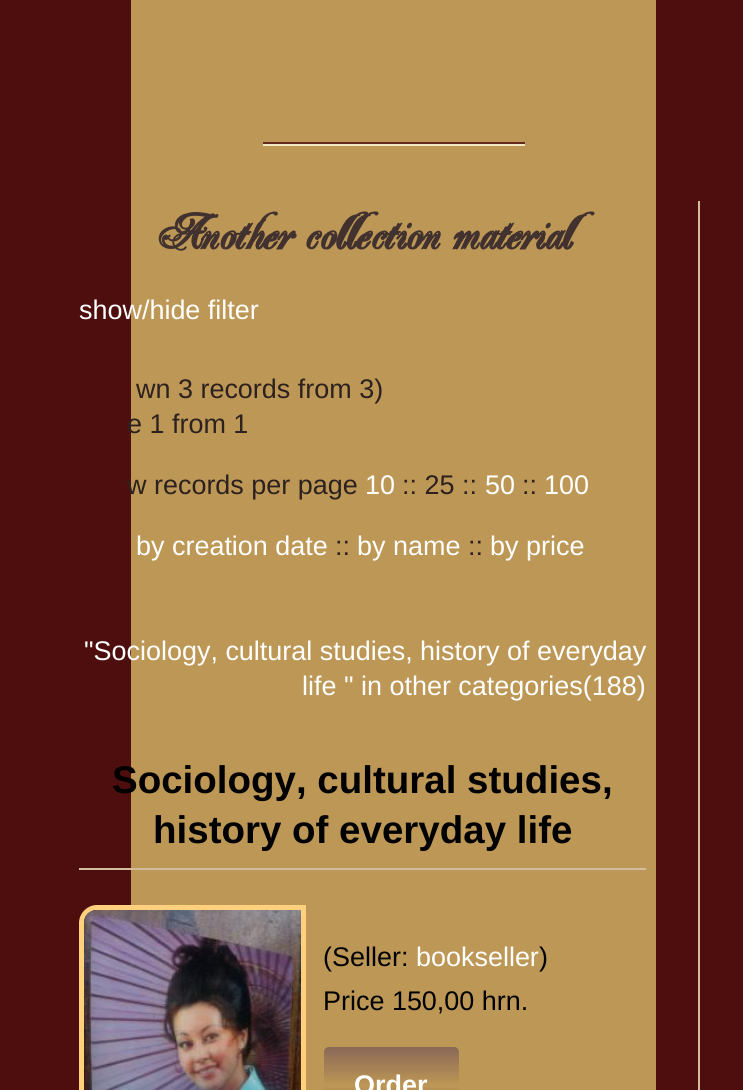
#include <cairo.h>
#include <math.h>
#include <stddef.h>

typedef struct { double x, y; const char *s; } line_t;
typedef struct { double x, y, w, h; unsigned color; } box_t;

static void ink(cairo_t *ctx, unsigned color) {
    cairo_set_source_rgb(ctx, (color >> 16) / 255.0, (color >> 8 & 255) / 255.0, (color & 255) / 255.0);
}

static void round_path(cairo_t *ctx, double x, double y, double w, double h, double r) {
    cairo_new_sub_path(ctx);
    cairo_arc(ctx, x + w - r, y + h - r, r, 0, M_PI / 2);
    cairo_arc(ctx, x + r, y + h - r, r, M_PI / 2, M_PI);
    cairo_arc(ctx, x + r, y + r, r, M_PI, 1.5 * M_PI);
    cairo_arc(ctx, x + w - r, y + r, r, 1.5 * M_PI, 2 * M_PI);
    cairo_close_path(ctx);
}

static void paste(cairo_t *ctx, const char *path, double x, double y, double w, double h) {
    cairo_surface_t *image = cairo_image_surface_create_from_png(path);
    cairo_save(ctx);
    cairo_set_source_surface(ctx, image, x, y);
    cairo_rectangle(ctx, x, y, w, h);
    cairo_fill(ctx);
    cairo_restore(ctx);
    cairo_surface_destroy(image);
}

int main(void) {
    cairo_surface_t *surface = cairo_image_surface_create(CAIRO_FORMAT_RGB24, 743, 1090);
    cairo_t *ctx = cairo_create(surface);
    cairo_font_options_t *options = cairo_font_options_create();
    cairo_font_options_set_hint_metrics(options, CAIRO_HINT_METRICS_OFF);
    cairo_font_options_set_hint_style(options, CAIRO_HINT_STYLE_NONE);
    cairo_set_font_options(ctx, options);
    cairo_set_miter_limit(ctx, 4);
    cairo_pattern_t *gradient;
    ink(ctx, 0x4E0E0E);
    cairo_paint(ctx);
    {
        static const box_t items[] = {
            {131, 0, 525, 1090, 0xBD9755},
            {263, 144, 262, 2, 0xF2E9C3},
            {263, 142, 262, 2, 0x64291C},
        };
        for (size_t i = 0; i < sizeof items / sizeof *items; i++) {
            ink(ctx, items[i].color);
            cairo_rectangle(ctx, items[i].x, items[i].y, items[i].w, items[i].h);
            cairo_fill(ctx);
        }
    }
    ink(ctx, 0xD2BE9D);
    cairo_set_fill_rule(ctx, CAIRO_FILL_RULE_EVEN_ODD);
    cairo_new_path(ctx);
    cairo_move_to(ctx, 79, 201);
    cairo_line_to(ctx, 700, 201);
    cairo_line_to(ctx, 700, 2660);
    cairo_curve_to(ctx, 700, 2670, 692, 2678, 682, 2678);
    cairo_line_to(ctx, 79, 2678);
    cairo_close_path(ctx);
    cairo_move_to(ctx, 79, 201);
    cairo_line_to(ctx, 698, 201);
    cairo_line_to(ctx, 698, 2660);
    cairo_curve_to(ctx, 698, 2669, 691, 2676, 682, 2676);
    cairo_line_to(ctx, 79, 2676);
    cairo_close_path(ctx);
    cairo_fill(ctx);
    cairo_select_font_face(ctx, "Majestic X", CAIRO_FONT_SLANT_NORMAL, CAIRO_FONT_WEIGHT_BOLD);
    cairo_set_font_size(ctx, 50);
    ink(ctx, 0x42322F);
    cairo_move_to(ctx, 153, 249);
    cairo_show_text(ctx, "Another collection material");
    cairo_select_font_face(ctx, "Liberation Sans", CAIRO_FONT_SLANT_NORMAL, CAIRO_FONT_WEIGHT_NORMAL);
    cairo_set_font_size(ctx, 26.95);
    ink(ctx, 0xFFFFFF);
    cairo_move_to(ctx, 79, 319);
    cairo_show_text(ctx, "show/hide filter");
    ink(ctx, 0x2C211F);
    {
        static const line_t items[] = {
            {136, 398, "wn 3 records from 3)"},
            {127, 433, "e 1 from 1"},
            {127, 494, "w records per page"},
        };
        for (size_t i = 0; i < sizeof items / sizeof *items; i++) {
            cairo_move_to(ctx, items[i].x, items[i].y);
            cairo_show_text(ctx, items[i].s);
        }
    }
    ink(ctx, 0xFFFFFF);
    cairo_move_to(ctx, 365, 494);
    cairo_show_text(ctx, "10");
    ink(ctx, 0x2C211F);
    cairo_move_to(ctx, 402, 494);
    cairo_show_text(ctx, ":: 25 ::");
    ink(ctx, 0xFFFFFF);
    cairo_move_to(ctx, 485, 494);
    cairo_show_text(ctx, "50");
    ink(ctx, 0x2C211F);
    cairo_move_to(ctx, 522, 494);
    cairo_show_text(ctx, "::");
    ink(ctx, 0xFFFFFF);
    cairo_move_to(ctx, 544, 494);
    cairo_show_text(ctx, "100");
    cairo_move_to(ctx, 136, 555);
    cairo_show_text(ctx, "by creation date");
    ink(ctx, 0x2C211F);
    cairo_move_to(ctx, 335, 555);
    cairo_show_text(ctx, "::");
    ink(ctx, 0xFFFFFF);
    cairo_move_to(ctx, 357, 555);
    cairo_show_text(ctx, "by name");
    ink(ctx, 0x2C211F);
    cairo_move_to(ctx, 468, 555);
    cairo_show_text(ctx, "::");
    ink(ctx, 0xFFFFFF);
    {
        static const line_t items[] = {
            {490, 555, "by price"},
            {84, 660, "\"Sociology, cultural studies, history of everyday"},
            {302, 695, "life \" in other categories(188)"},
        };
        for (size_t i = 0; i < sizeof items / sizeof *items; i++) {
            cairo_move_to(ctx, items[i].x, items[i].y);
            cairo_show_text(ctx, items[i].s);
        }
    }
    cairo_select_font_face(ctx, "Liberation Sans", CAIRO_FONT_SLANT_NORMAL, CAIRO_FONT_WEIGHT_BOLD);
    cairo_set_font_size(ctx, 38.5);
    ink(ctx, 0x000000);
    cairo_move_to(ctx, 112, 793);
    cairo_show_text(ctx, "Sociology, cultural studies,");
    cairo_move_to(ctx, 153, 843);
    cairo_show_text(ctx, "history of everyday life");
    ink(ctx, 0xD2BE9D);
    cairo_rectangle(ctx, 79, 868, 567, 2);
    cairo_fill(ctx);
    cairo_new_path(ctx);
    cairo_move_to(ctx, 97, 907.5);
    cairo_line_to(ctx, 303.5, 907.5);
    cairo_line_to(ctx, 303.5, 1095);
    cairo_curve_to(ctx, 303.5, 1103.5, 296.5, 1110.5, 288, 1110.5);
    cairo_line_to(ctx, 81.5, 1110.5);
    cairo_line_to(ctx, 81.5, 923);
    cairo_curve_to(ctx, 81.5, 914.5, 88.5, 907.5, 97, 907.5);
    cairo_close_path(ctx);
    ink(ctx, 0xFFD07E);
    cairo_set_line_width(ctx, 5);
    cairo_stroke(ctx);
    paste(ctx, "media/1.png", 84, 910, 217, 180);
    cairo_select_font_face(ctx, "Liberation Sans", CAIRO_FONT_SLANT_NORMAL, CAIRO_FONT_WEIGHT_NORMAL);
    cairo_set_font_size(ctx, 26.95);
    ink(ctx, 0x000000);
    cairo_move_to(ctx, 323, 966);
    cairo_show_text(ctx, "(Seller:");
    ink(ctx, 0xFFFFFF);
    cairo_move_to(ctx, 416, 966);
    cairo_show_text(ctx, "bookseller");
    ink(ctx, 0x000000);
    cairo_move_to(ctx, 539, 966);
    cairo_show_text(ctx, ")");
    cairo_move_to(ctx, 323, 1010);
    cairo_show_text(ctx, "Price 150,00 hrn.");
    gradient = cairo_pattern_create_linear(391, 1047, 391, 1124);
    cairo_pattern_add_color_stop_rgba(gradient, 0, 0.541, 0.408, 0.341, 1);
    cairo_pattern_add_color_stop_rgba(gradient, 0.5, 0.741, 0.592, 0.333, 1);
    cairo_pattern_add_color_stop_rgba(gradient, 1, 0.541, 0.408, 0.341, 1);
    cairo_set_source(ctx, gradient);
    cairo_pattern_destroy(gradient);
    round_path(ctx, 324, 1047, 135, 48, 5);
    cairo_fill(ctx);
    cairo_select_font_face(ctx, "Liberation Sans", CAIRO_FONT_SLANT_NORMAL, CAIRO_FONT_WEIGHT_BOLD);
    ink(ctx, 0xFFFFFF);
    cairo_move_to(ctx, 354, 1094);
    cairo_show_text(ctx, "Order");
    cairo_surface_write_to_png(surface, "image.png");
    cairo_font_options_destroy(options);
    cairo_destroy(ctx);
    cairo_surface_destroy(surface);
    return 0;
}
